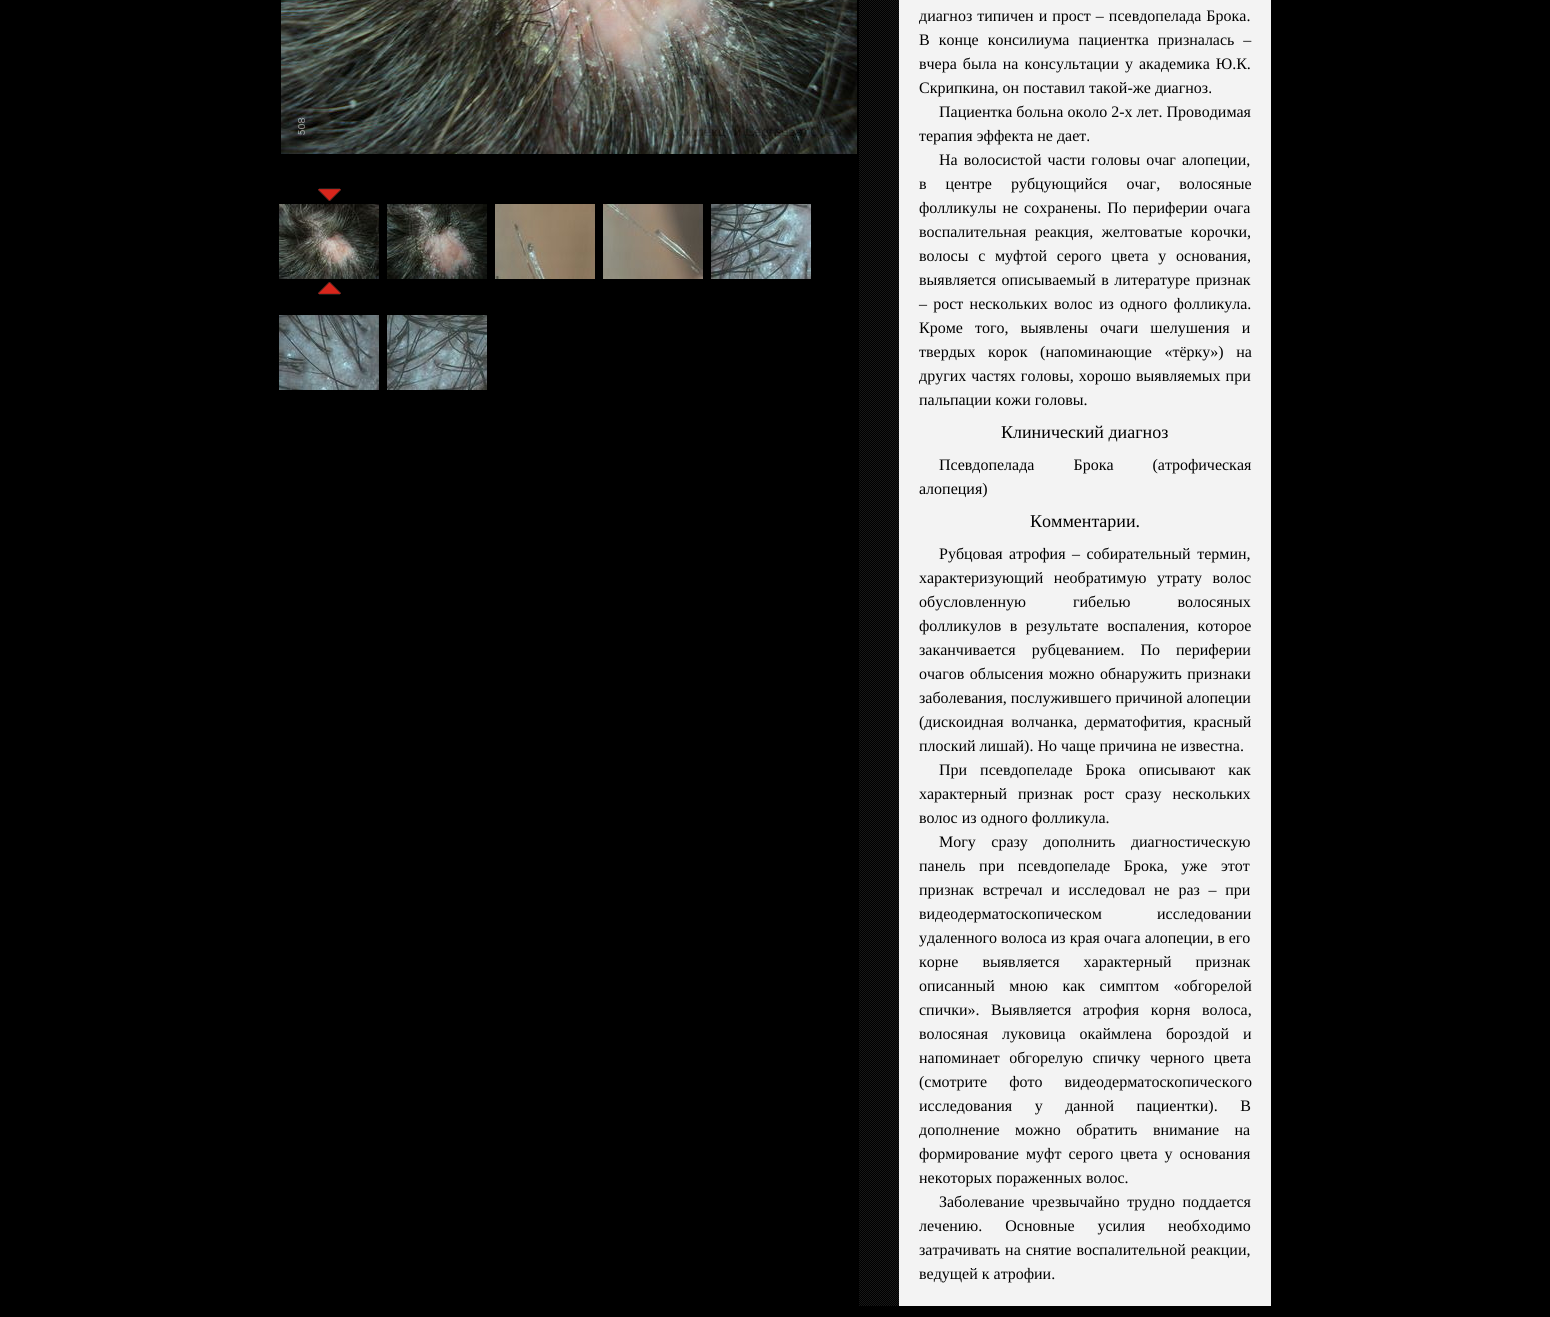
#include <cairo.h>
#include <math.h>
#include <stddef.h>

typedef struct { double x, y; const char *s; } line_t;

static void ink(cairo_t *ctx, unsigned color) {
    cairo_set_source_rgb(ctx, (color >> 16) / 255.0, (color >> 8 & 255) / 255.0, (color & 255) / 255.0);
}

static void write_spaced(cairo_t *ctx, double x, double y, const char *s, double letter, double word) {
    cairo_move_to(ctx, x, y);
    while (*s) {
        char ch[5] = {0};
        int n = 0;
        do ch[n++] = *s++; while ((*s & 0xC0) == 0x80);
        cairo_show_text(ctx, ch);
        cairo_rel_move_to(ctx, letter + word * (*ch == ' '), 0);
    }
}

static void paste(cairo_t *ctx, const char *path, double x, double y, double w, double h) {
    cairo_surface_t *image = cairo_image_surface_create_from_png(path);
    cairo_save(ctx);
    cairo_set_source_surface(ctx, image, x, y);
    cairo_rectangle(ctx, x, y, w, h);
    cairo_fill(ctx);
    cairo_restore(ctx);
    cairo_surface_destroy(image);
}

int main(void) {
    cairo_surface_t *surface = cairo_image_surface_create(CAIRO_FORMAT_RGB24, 1550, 1317);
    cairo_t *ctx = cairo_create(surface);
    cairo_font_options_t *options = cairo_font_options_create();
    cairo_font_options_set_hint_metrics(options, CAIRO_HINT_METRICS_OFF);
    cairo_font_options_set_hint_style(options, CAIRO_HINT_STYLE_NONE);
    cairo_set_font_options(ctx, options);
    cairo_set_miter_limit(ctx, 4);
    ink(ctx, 0x000000);
    cairo_paint(ctx);
    paste(ctx, "media/1.png", 281, 0, 576, 154);
    paste(ctx, "media/2.png", 318, 188, 23, 13);
    paste(ctx, "media/3.png", 279, 204, 100, 75);
    paste(ctx, "media/4.png", 318, 282, 23, 13);
    paste(ctx, "media/5.png", 387, 204, 100, 75);
    paste(ctx, "media/6.png", 495, 204, 100, 75);
    paste(ctx, "media/7.png", 603, 204, 100, 75);
    paste(ctx, "media/8.png", 711, 204, 100, 75);
    paste(ctx, "media/9.png", 279, 315, 100, 75);
    paste(ctx, "media/10.png", 387, 315, 100, 75);
    paste(ctx, "media/11.png", 859, 0, 40, 1306);
    ink(ctx, 0xF3F3F3);
    cairo_rectangle(ctx, 899, 0, 372, 1306);
    cairo_fill(ctx);
    cairo_select_font_face(ctx, "Liberation Serif", CAIRO_FONT_SLANT_NORMAL, CAIRO_FONT_WEIGHT_NORMAL);
    cairo_set_font_size(ctx, 16);
    ink(ctx, 0x000000);
    write_spaced(ctx, 919, 21, "диагноз типичен и прост – псевдопелада Брока.", 0, 1);
    write_spaced(ctx, 919, 45, "В конце консилиума пациентка призналась –", 0, 5);
    write_spaced(ctx, 919, 69, "вчера была на консультации у академика Ю.К.", 0, 2);
    {
        static const line_t items[] = {
            {919, 93, "Скрипкина, он поставил такой-же диагноз."},
            {939, 117, "Пациентка больна около 2-х лет. Проводимая"},
            {919, 141, "терапия эффекта не дает."},
        };
        for (size_t i = 0; i < sizeof items / sizeof *items; i++) {
            cairo_move_to(ctx, items[i].x, items[i].y);
            cairo_show_text(ctx, items[i].s);
        }
    }
    write_spaced(ctx, 939, 165, "На волосистой части головы очаг алопеции,", 0, 2);
    write_spaced(ctx, 919, 189, "в центре рубцующийся очаг, волосяные", 0, 15);
    write_spaced(ctx, 919, 213, "фолликулы не сохранены. По периферии очага", 0, 2);
    write_spaced(ctx, 919, 237, "воспалительная реакция, желтоватые корочки,", 0, 4.5);
    write_spaced(ctx, 919, 261, "волосы с муфтой серого цвета у основания,", 0, 5.75);
    write_spaced(ctx, 919, 285, "выявляется описываемый в литературе признак", 0, 1.5);
    write_spaced(ctx, 919, 309, "– рост нескольких волос из одного фолликула.", 0, 2.25);
    write_spaced(ctx, 919, 333, "Кроме того, выявлены очаги шелушения и", 0, 8);
    write_spaced(ctx, 919, 357, "твердых корок (напоминающие «тёрку») на", 0, 8.5);
    write_spaced(ctx, 919, 381, "других частях головы, хорошо выявляемых при", 0, 1);
    cairo_move_to(ctx, 919, 405);
    cairo_show_text(ctx, "пальпации кожи головы.");
    cairo_set_font_size(ctx, 18);
    cairo_move_to(ctx, 1001, 438);
    cairo_show_text(ctx, "Клинический диагноз");
    cairo_set_font_size(ctx, 16);
    write_spaced(ctx, 939, 470, "Псевдопелада Брока (атрофическая", 0, 35);
    cairo_move_to(ctx, 919, 494);
    cairo_show_text(ctx, "алопеция)");
    cairo_set_font_size(ctx, 18);
    cairo_move_to(ctx, 1030, 527);
    cairo_show_text(ctx, "Комментарии.");
    cairo_set_font_size(ctx, 16);
    write_spaced(ctx, 939, 559, "Рубцовая атрофия – собирательный термин,", 0, 2.5);
    write_spaced(ctx, 919, 583, "характеризующий необратимую утрату волос", 0, 6.5);
    write_spaced(ctx, 919, 607, "обусловленную гибелью волосяных", 0, 43);
    write_spaced(ctx, 919, 631, "фолликулов в результате воспаления, которое", 0, 4.5);
    write_spaced(ctx, 919, 655, "заканчивается рубцеванием. По периферии", 0, 12);
    write_spaced(ctx, 919, 679, "очагов облысения можно обнаружить признаки", 0, 1.5);
    cairo_move_to(ctx, 919, 703);
    cairo_show_text(ctx, "заболевания, послужившего причиной алопеции");
    write_spaced(ctx, 919, 727, "(дискоидная волчанка, дерматофития, красный", 0, 3.5);
    cairo_move_to(ctx, 919, 751);
    cairo_show_text(ctx, "плоский лишай). Но чаще причина не известна.");
    write_spaced(ctx, 939, 775, "При псевдопеладе Брока описывают как", 0, 9);
    write_spaced(ctx, 919, 799, "характерный признак рост сразу нескольких", 0, 7);
    cairo_move_to(ctx, 919, 823);
    cairo_show_text(ctx, "волос из одного фолликула.");
    write_spaced(ctx, 939, 847, "Могу сразу дополнить диагностическую", 0, 11.5);
    write_spaced(ctx, 919, 871, "панель при псевдопеладе Брока, уже этот", 0, 9.5);
    write_spaced(ctx, 919, 895, "признак встречал и исследовал не раз – при", 0, 4.75);
    write_spaced(ctx, 919, 919, "видеодерматоскопическом исследовании", 0, 51);
    cairo_move_to(ctx, 919, 943);
    cairo_show_text(ctx, "удаленного волоса из края очага алопеции, в его");
    write_spaced(ctx, 919, 967, "корне выявляется характерный признак", 0, 20);
    write_spaced(ctx, 919, 991, "описанный мною как симптом «обгорелой", 0, 10.5);
    write_spaced(ctx, 919, 1015, "спички». Выявляется атрофия корня волоса,", 0, 7.5);
    write_spaced(ctx, 919, 1039, "волосяная луковица окаймлена бороздой и", 0, 10);
    write_spaced(ctx, 919, 1063, "напоминает обгорелую спичку черного цвета", 0, 5.5);
    write_spaced(ctx, 919, 1087, "(смотрите фото видеодерматоскопического", 0, 18);
    write_spaced(ctx, 919, 1111, "исследования у данной пациентки). В", 0, 18.5);
    write_spaced(ctx, 919, 1135, "дополнение можно обратить внимание на", 0, 11.5);
    write_spaced(ctx, 919, 1159, "формирование муфт серого цвета у основания", 0, 3);
    cairo_move_to(ctx, 919, 1183);
    cairo_show_text(ctx, "некоторых пораженных волос.");
    write_spaced(ctx, 939, 1207, "Заболевание чрезвычайно трудно поддается", 0, 3.5);
    write_spaced(ctx, 919, 1231, "лечению. Основные усилия необходимо", 0, 19);
    write_spaced(ctx, 919, 1255, "затрачивать на снятие воспалительной реакции,", 0, 1);
    cairo_move_to(ctx, 919, 1279);
    cairo_show_text(ctx, "ведущей к атрофии.");
    cairo_surface_write_to_png(surface, "image.png");
    cairo_font_options_destroy(options);
    cairo_destroy(ctx);
    cairo_surface_destroy(surface);
    return 0;
}
